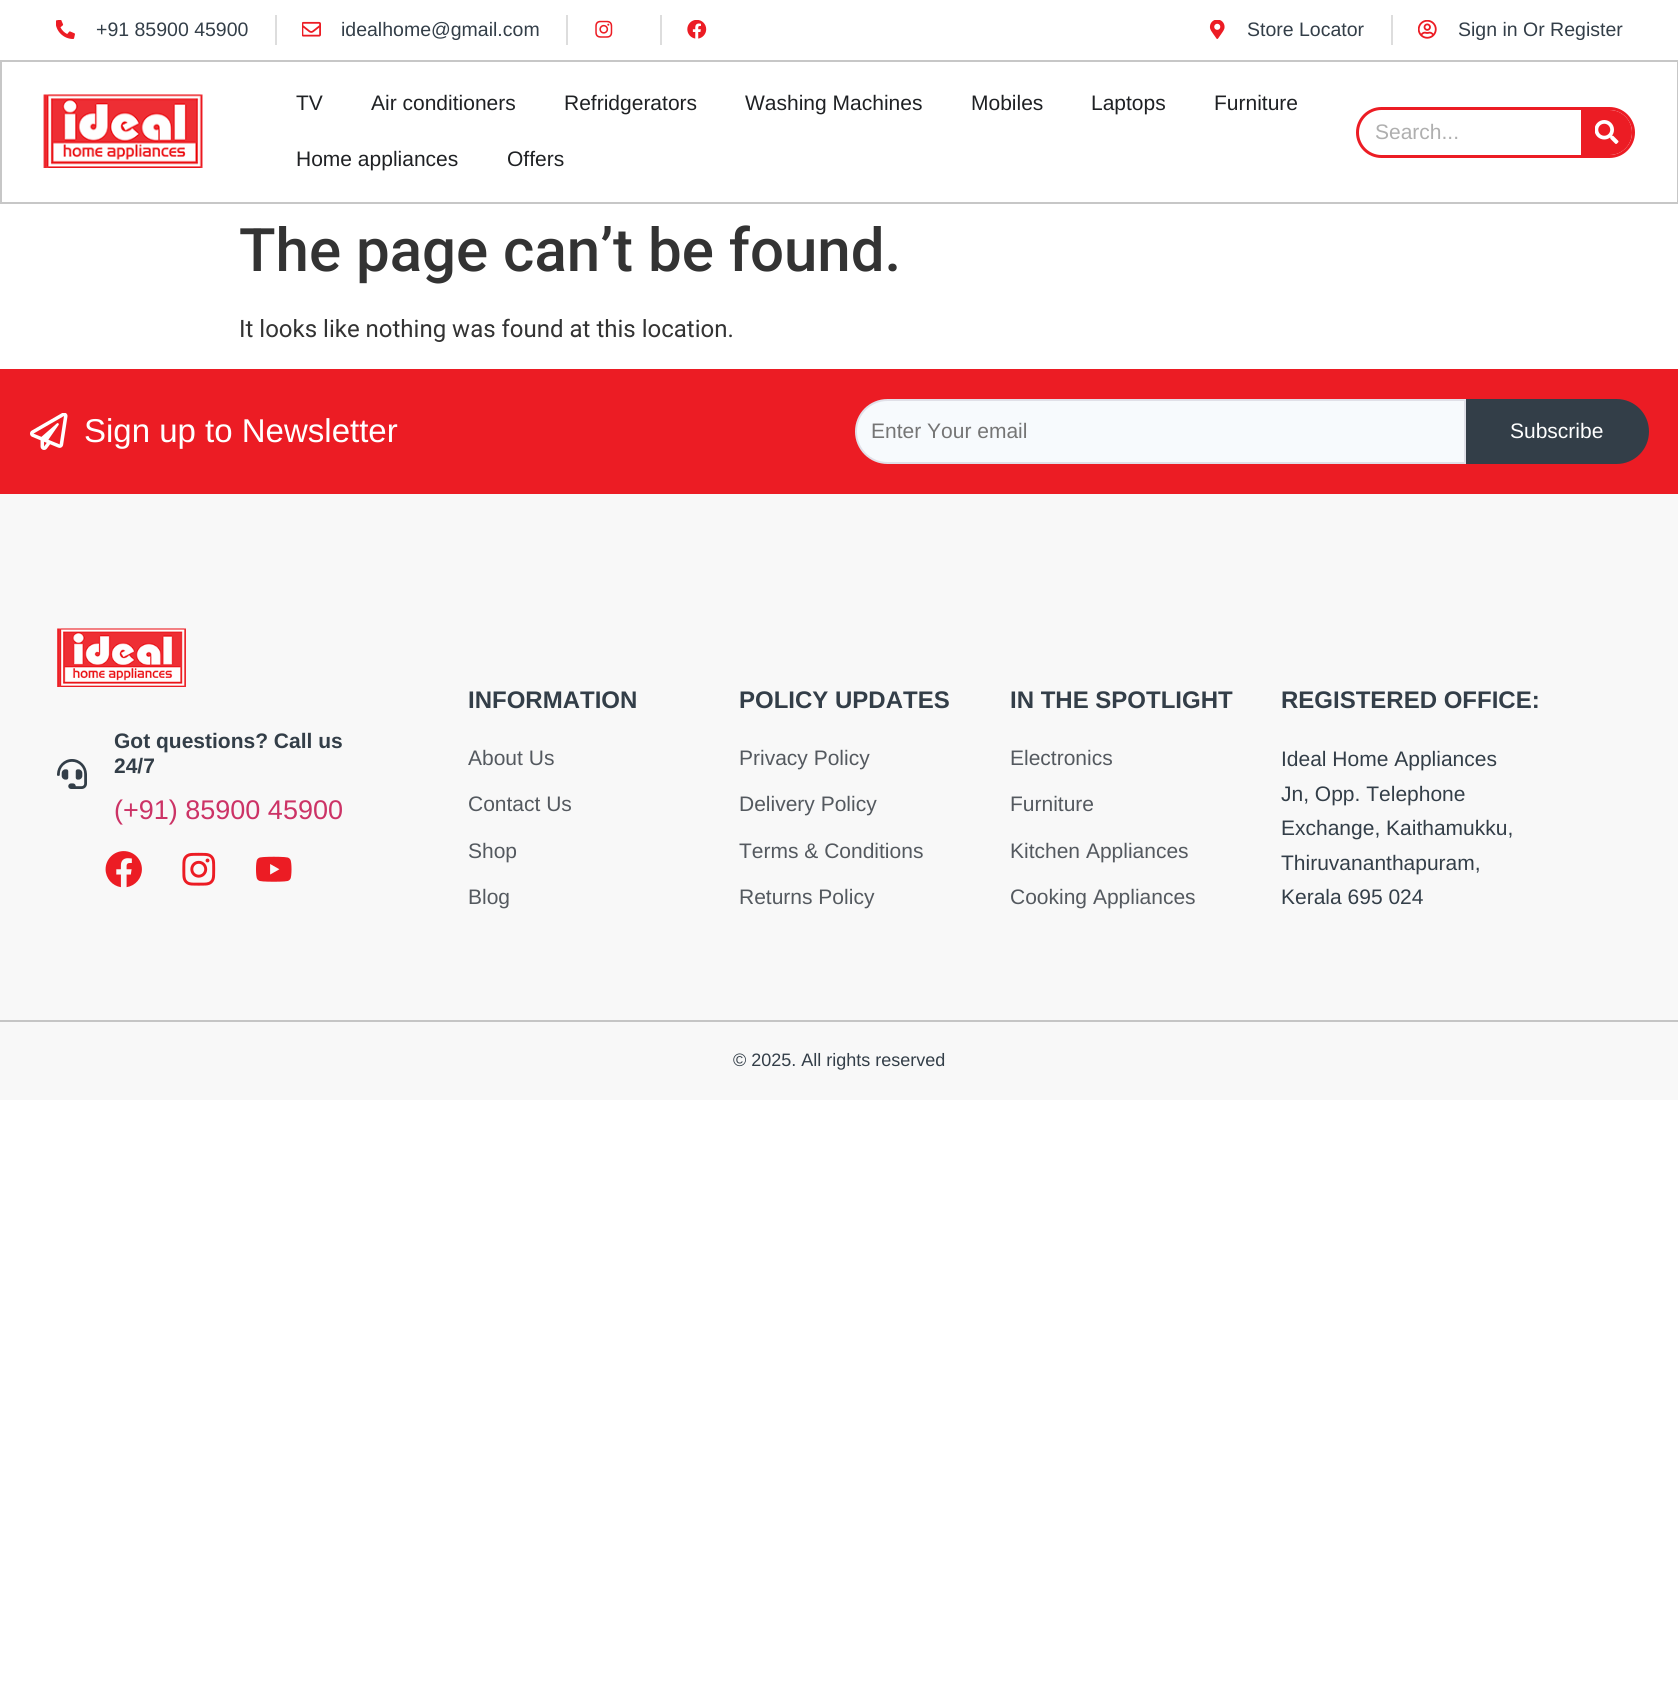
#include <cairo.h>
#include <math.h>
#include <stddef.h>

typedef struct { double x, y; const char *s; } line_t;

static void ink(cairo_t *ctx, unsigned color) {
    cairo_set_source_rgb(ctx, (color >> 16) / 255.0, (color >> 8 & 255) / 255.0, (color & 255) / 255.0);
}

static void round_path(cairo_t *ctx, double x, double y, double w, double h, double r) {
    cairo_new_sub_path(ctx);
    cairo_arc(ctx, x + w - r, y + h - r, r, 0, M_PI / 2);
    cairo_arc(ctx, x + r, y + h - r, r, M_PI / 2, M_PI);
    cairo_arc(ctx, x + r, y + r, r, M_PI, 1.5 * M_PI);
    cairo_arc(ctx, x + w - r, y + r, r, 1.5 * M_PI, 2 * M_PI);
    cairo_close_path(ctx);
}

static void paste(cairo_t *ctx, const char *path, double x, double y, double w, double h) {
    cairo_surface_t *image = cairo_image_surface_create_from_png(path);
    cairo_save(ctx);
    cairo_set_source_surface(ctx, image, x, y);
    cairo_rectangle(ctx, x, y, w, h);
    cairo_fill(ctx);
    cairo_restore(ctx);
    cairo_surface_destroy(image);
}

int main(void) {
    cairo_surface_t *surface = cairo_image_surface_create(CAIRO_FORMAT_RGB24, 1678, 1687);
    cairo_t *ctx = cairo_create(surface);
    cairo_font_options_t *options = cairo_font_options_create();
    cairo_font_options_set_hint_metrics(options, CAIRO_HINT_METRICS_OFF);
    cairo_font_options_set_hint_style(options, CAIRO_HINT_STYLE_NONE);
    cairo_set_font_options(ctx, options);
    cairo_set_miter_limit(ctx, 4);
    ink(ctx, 0xFFFFFF);
    cairo_paint(ctx);
    paste(ctx, "media/1.png", 56, 20, 19, 19);
    cairo_select_font_face(ctx, "Liberation Sans", CAIRO_FONT_SLANT_NORMAL, CAIRO_FONT_WEIGHT_NORMAL);
    cairo_set_font_size(ctx, 19.5);
    ink(ctx, 0x333E48);
    cairo_move_to(ctx, 96, 36);
    cairo_show_text(ctx, "+91 85900 45900");
    ink(ctx, 0xDDDDDD);
    cairo_rectangle(ctx, 275, 15, 2, 30);
    cairo_fill(ctx);
    paste(ctx, "media/2.png", 302, 21, 19, 16);
    ink(ctx, 0x333E48);
    cairo_move_to(ctx, 341, 36);
    cairo_show_text(ctx, "idealhome@gmail.com");
    ink(ctx, 0xDDDDDD);
    cairo_rectangle(ctx, 566, 15, 2, 30);
    cairo_fill(ctx);
    paste(ctx, "media/3.png", 595, 20, 18, 18);
    cairo_rectangle(ctx, 660, 15, 2, 30);
    cairo_fill(ctx);
    paste(ctx, "media/4.png", 687, 20, 20, 19);
    paste(ctx, "media/5.png", 1209, 20, 16, 19);
    ink(ctx, 0x333E48);
    cairo_move_to(ctx, 1247, 36);
    cairo_show_text(ctx, "Store Locator");
    ink(ctx, 0xDDDDDD);
    cairo_rectangle(ctx, 1391, 15, 2, 30);
    cairo_fill(ctx);
    paste(ctx, "media/6.png", 1418, 20, 19, 19);
    ink(ctx, 0x333E48);
    cairo_move_to(ctx, 1458, 36);
    cairo_show_text(ctx, "Sign in Or Register");
    cairo_rectangle(ctx, 1, 61, 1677, 142);
    ink(ctx, 0xC7C7C7);
    cairo_stroke(ctx);
    paste(ctx, "media/7.png", 43, 94, 160, 74);
    cairo_set_font_size(ctx, 21);
    ink(ctx, 0x1F2124);
    {
        static const line_t items[] = {
            {296, 110, "TV"},
            {371, 110, "Air conditioners"},
            {564, 110, "Refridgerators"},
            {745, 110, "Washing Machines"},
            {971, 110, "Mobiles"},
            {1091, 110, "Laptops"},
            {1214, 110, "Furniture"},
            {296, 166, "Home appliances"},
            {507, 166, "Offers"},
        };
        for (size_t i = 0; i < sizeof items / sizeof *items; i++) {
            cairo_move_to(ctx, items[i].x, items[i].y);
            cairo_show_text(ctx, items[i].s);
        }
    }
    round_path(ctx, 1357.5, 108.5, 276, 48, 24);
    ink(ctx, 0xEC1C24);
    cairo_set_line_width(ctx, 3);
    cairo_stroke(ctx);
    ink(ctx, 0xAFAFAF);
    cairo_move_to(ctx, 1375, 139);
    cairo_show_text(ctx, "Search...");
    ink(ctx, 0xEC1C24);
    cairo_new_path(ctx);
    cairo_move_to(ctx, 1581, 110);
    cairo_line_to(ctx, 1609.5, 110);
    cairo_curve_to(ctx, 1622, 110, 1632, 120, 1632, 132.5);
    cairo_curve_to(ctx, 1632, 145, 1622, 155, 1609.5, 155);
    cairo_line_to(ctx, 1581, 155);
    cairo_close_path(ctx);
    cairo_fill(ctx);
    paste(ctx, "media/8.png", 1595, 120, 24, 24);
    cairo_select_font_face(ctx, "Roboto Medium", CAIRO_FONT_SLANT_NORMAL, CAIRO_FONT_WEIGHT_NORMAL);
    cairo_set_font_size(ctx, 60);
    ink(ctx, 0x333333);
    cairo_move_to(ctx, 239, 271);
    cairo_show_text(ctx, "The page can’t be found.");
    cairo_select_font_face(ctx, "Roboto", CAIRO_FONT_SLANT_NORMAL, CAIRO_FONT_WEIGHT_NORMAL);
    cairo_set_font_size(ctx, 24);
    cairo_move_to(ctx, 239, 337);
    cairo_show_text(ctx, "It looks like nothing was found at this location.");
    ink(ctx, 0xEC1C24);
    cairo_rectangle(ctx, 0, 369, 1678, 125);
    cairo_fill(ctx);
    paste(ctx, "media/9.png", 30, 413, 38, 37);
    cairo_select_font_face(ctx, "Liberation Sans", CAIRO_FONT_SLANT_NORMAL, CAIRO_FONT_WEIGHT_NORMAL);
    cairo_set_font_size(ctx, 33);
    ink(ctx, 0xFFFFFF);
    cairo_move_to(ctx, 84, 442);
    cairo_show_text(ctx, "Sign up to Newsletter");
    ink(ctx, 0xF7FAFD);
    cairo_new_path(ctx);
    cairo_move_to(ctx, 887.5, 400);
    cairo_line_to(ctx, 1465, 400);
    cairo_line_to(ctx, 1465, 463);
    cairo_line_to(ctx, 887.5, 463);
    cairo_curve_to(ctx, 870, 463, 856, 449, 856, 431.5);
    cairo_curve_to(ctx, 856, 414, 870, 400, 887.5, 400);
    cairo_close_path(ctx);
    cairo_fill_preserve(ctx);
    ink(ctx, 0xE0E0E8);
    cairo_set_line_width(ctx, 2);
    cairo_stroke(ctx);
    cairo_set_font_size(ctx, 21);
    ink(ctx, 0x757575);
    cairo_move_to(ctx, 871, 438);
    cairo_show_text(ctx, "Enter Your email");
    ink(ctx, 0x333E48);
    cairo_new_path(ctx);
    cairo_move_to(ctx, 1466, 399);
    cairo_line_to(ctx, 1616.5, 399);
    cairo_curve_to(ctx, 1634.5, 399, 1649, 413.5, 1649, 431.5);
    cairo_curve_to(ctx, 1649, 449.5, 1634.5, 464, 1616.5, 464);
    cairo_line_to(ctx, 1466, 464);
    cairo_close_path(ctx);
    cairo_fill(ctx);
    ink(ctx, 0xFFFFFF);
    cairo_move_to(ctx, 1510, 438);
    cairo_show_text(ctx, "Subscribe");
    ink(ctx, 0xF8F8F8);
    cairo_rectangle(ctx, 0, 494, 1678, 526);
    cairo_fill(ctx);
    ink(ctx, 0xC5C5C5);
    cairo_rectangle(ctx, 0, 1020, 1678, 2);
    cairo_fill(ctx);
    paste(ctx, "media/10.png", 57, 628, 129, 59);
    paste(ctx, "media/11.png", 57, 759, 30, 30);
    cairo_select_font_face(ctx, "Liberation Sans", CAIRO_FONT_SLANT_NORMAL, CAIRO_FONT_WEIGHT_BOLD);
    ink(ctx, 0x333E48);
    cairo_move_to(ctx, 114, 748);
    cairo_show_text(ctx, "Got questions? Call us");
    cairo_move_to(ctx, 114, 773);
    cairo_show_text(ctx, "24/7");
    cairo_select_font_face(ctx, "Liberation Sans", CAIRO_FONT_SLANT_NORMAL, CAIRO_FONT_WEIGHT_NORMAL);
    cairo_set_font_size(ctx, 27);
    ink(ctx, 0xCC3366);
    cairo_move_to(ctx, 114, 819);
    cairo_show_text(ctx, "(+91) 85900 45900");
    paste(ctx, "media/12.png", 105, 851, 37, 37);
    paste(ctx, "media/13.png", 182, 852, 34, 34);
    paste(ctx, "media/14.png", 256, 856, 36, 26);
    cairo_select_font_face(ctx, "Liberation Sans", CAIRO_FONT_SLANT_NORMAL, CAIRO_FONT_WEIGHT_BOLD);
    cairo_set_font_size(ctx, 24);
    ink(ctx, 0x333E48);
    cairo_move_to(ctx, 468, 708);
    cairo_show_text(ctx, "INFORMATION");
    cairo_select_font_face(ctx, "Liberation Sans", CAIRO_FONT_SLANT_NORMAL, CAIRO_FONT_WEIGHT_NORMAL);
    cairo_set_font_size(ctx, 21);
    ink(ctx, 0x54595F);
    {
        static const line_t items[] = {
            {468, 765, "About Us"},
            {468, 811, "Contact Us"},
            {468, 858, "Shop"},
            {468, 904, "Blog"},
        };
        for (size_t i = 0; i < sizeof items / sizeof *items; i++) {
            cairo_move_to(ctx, items[i].x, items[i].y);
            cairo_show_text(ctx, items[i].s);
        }
    }
    cairo_select_font_face(ctx, "Liberation Sans", CAIRO_FONT_SLANT_NORMAL, CAIRO_FONT_WEIGHT_BOLD);
    cairo_set_font_size(ctx, 24);
    ink(ctx, 0x333E48);
    cairo_move_to(ctx, 739, 708);
    cairo_show_text(ctx, "POLICY UPDATES");
    cairo_select_font_face(ctx, "Liberation Sans", CAIRO_FONT_SLANT_NORMAL, CAIRO_FONT_WEIGHT_NORMAL);
    cairo_set_font_size(ctx, 21);
    ink(ctx, 0x54595F);
    {
        static const line_t items[] = {
            {739, 765, "Privacy Policy"},
            {739, 811, "Delivery Policy"},
            {739, 858, "Terms & Conditions"},
            {739, 904, "Returns Policy"},
        };
        for (size_t i = 0; i < sizeof items / sizeof *items; i++) {
            cairo_move_to(ctx, items[i].x, items[i].y);
            cairo_show_text(ctx, items[i].s);
        }
    }
    cairo_select_font_face(ctx, "Liberation Sans", CAIRO_FONT_SLANT_NORMAL, CAIRO_FONT_WEIGHT_BOLD);
    cairo_set_font_size(ctx, 24);
    ink(ctx, 0x333E48);
    cairo_move_to(ctx, 1010, 708);
    cairo_show_text(ctx, "IN THE SPOTLIGHT");
    cairo_select_font_face(ctx, "Liberation Sans", CAIRO_FONT_SLANT_NORMAL, CAIRO_FONT_WEIGHT_NORMAL);
    cairo_set_font_size(ctx, 21);
    ink(ctx, 0x54595F);
    {
        static const line_t items[] = {
            {1010, 765, "Electronics"},
            {1010, 811, "Furniture"},
            {1010, 858, "Kitchen Appliances"},
            {1010, 904, "Cooking Appliances"},
        };
        for (size_t i = 0; i < sizeof items / sizeof *items; i++) {
            cairo_move_to(ctx, items[i].x, items[i].y);
            cairo_show_text(ctx, items[i].s);
        }
    }
    cairo_select_font_face(ctx, "Liberation Sans", CAIRO_FONT_SLANT_NORMAL, CAIRO_FONT_WEIGHT_BOLD);
    cairo_set_font_size(ctx, 24);
    ink(ctx, 0x333E48);
    cairo_move_to(ctx, 1281, 708);
    cairo_show_text(ctx, "REGISTERED OFFICE:");
    cairo_select_font_face(ctx, "Liberation Sans", CAIRO_FONT_SLANT_NORMAL, CAIRO_FONT_WEIGHT_NORMAL);
    cairo_set_font_size(ctx, 21);
    {
        static const line_t items[] = {
            {1281, 766, "Ideal Home Appliances"},
            {1281, 801, "Jn, Opp. Telephone"},
            {1281, 835, "Exchange, Kaithamukku,"},
            {1281, 870, "Thiruvananthapuram,"},
            {1281, 904, "Kerala 695 024"},
        };
        for (size_t i = 0; i < sizeof items / sizeof *items; i++) {
            cairo_move_to(ctx, items[i].x, items[i].y);
            cairo_show_text(ctx, items[i].s);
        }
    }
    ink(ctx, 0xF8F8F8);
    cairo_rectangle(ctx, 0, 1022, 1678, 78);
    cairo_fill(ctx);
    cairo_set_font_size(ctx, 18);
    ink(ctx, 0x333E48);
    cairo_move_to(ctx, 733, 1066);
    cairo_show_text(ctx, "© 2025. All rights reserved");
    cairo_surface_write_to_png(surface, "image.png");
    cairo_font_options_destroy(options);
    cairo_destroy(ctx);
    cairo_surface_destroy(surface);
    return 0;
}
